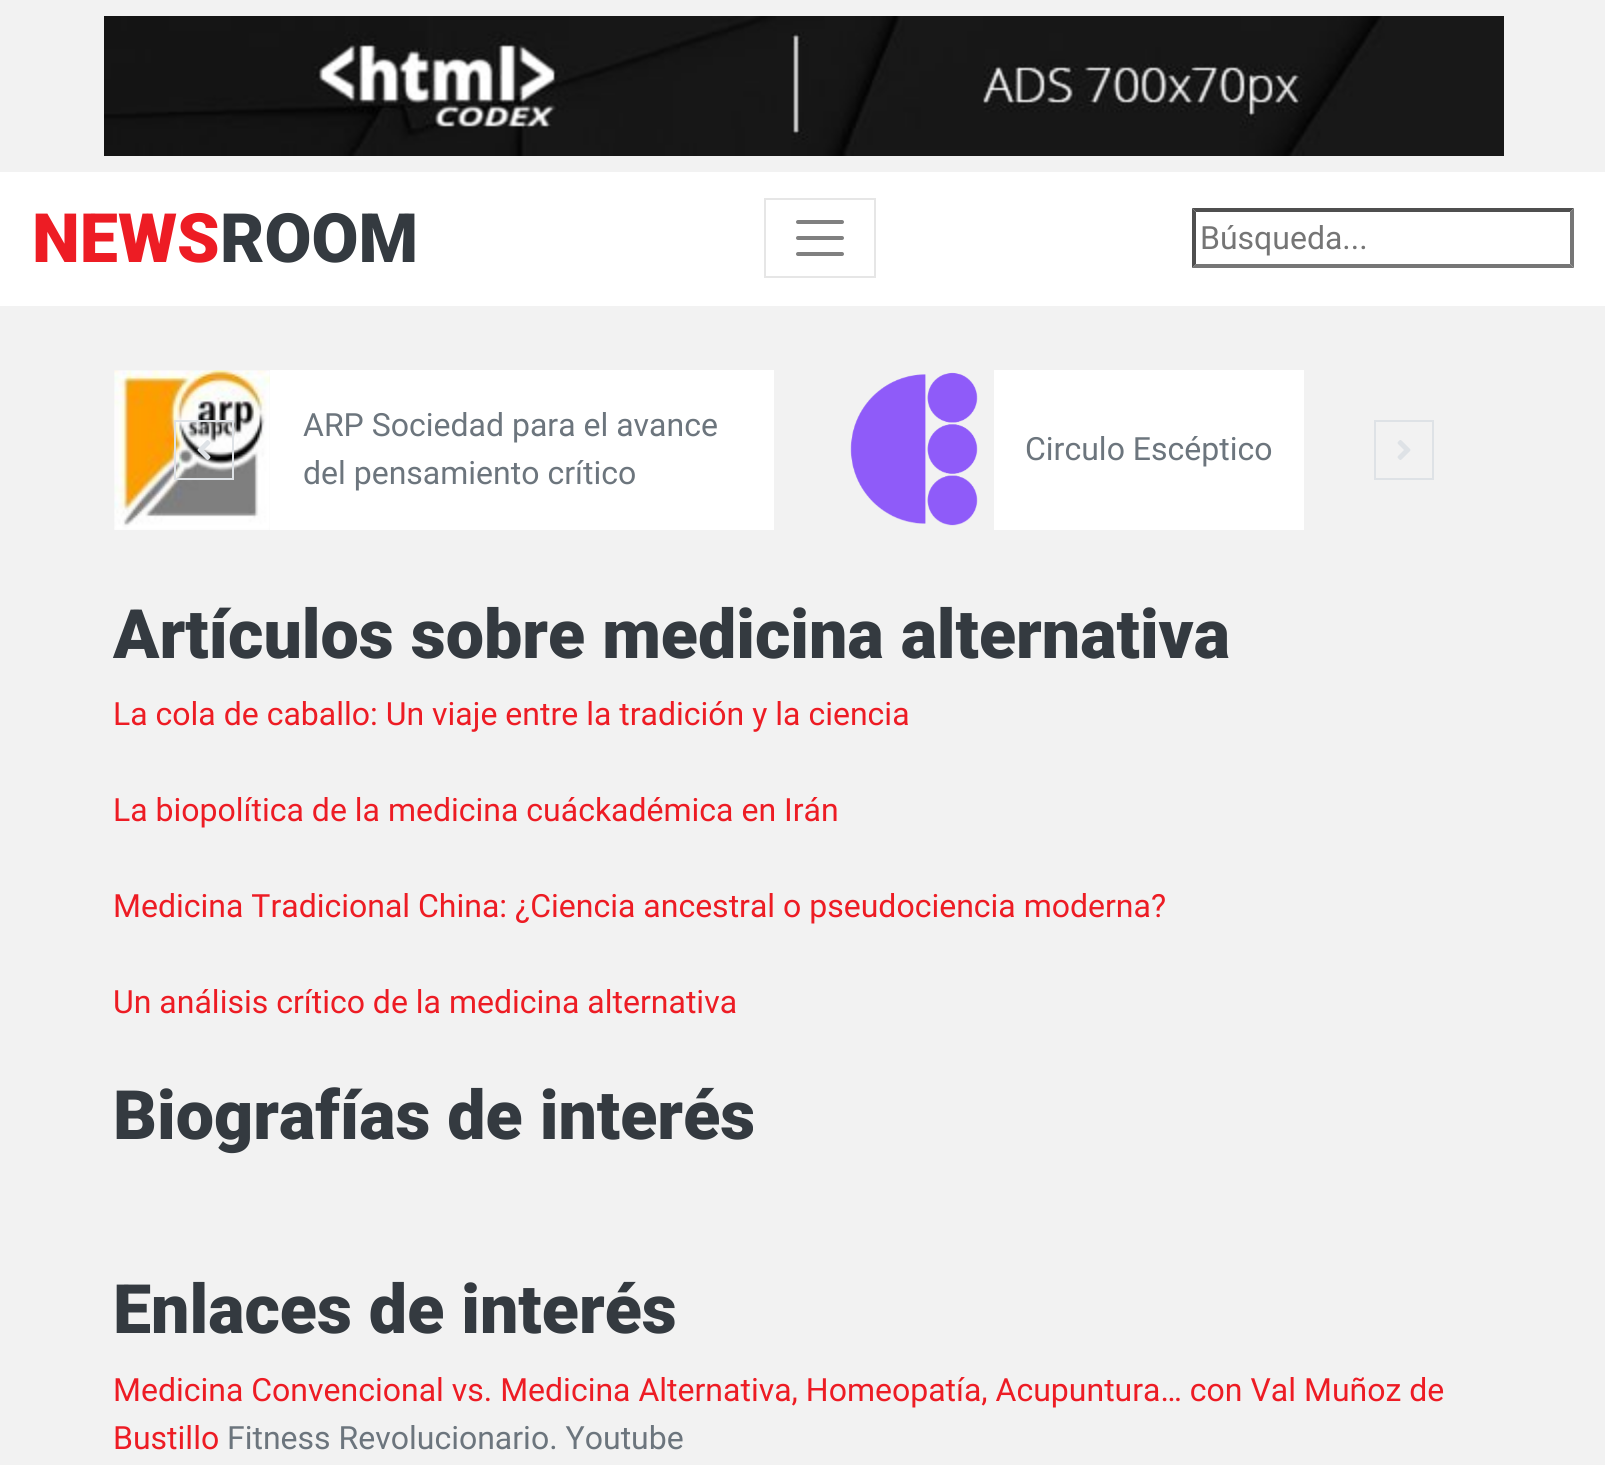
#include <cairo.h>
#include <math.h>
#include <stddef.h>

typedef struct { double x, y; const char *s; } line_t;

static void ink(cairo_t *ctx, unsigned color) {
    cairo_set_source_rgb(ctx, (color >> 16) / 255.0, (color >> 8 & 255) / 255.0, (color & 255) / 255.0);
}

static void paste(cairo_t *ctx, const char *path, double x, double y, double w, double h) {
    cairo_surface_t *image = cairo_image_surface_create_from_png(path);
    cairo_save(ctx);
    cairo_set_source_surface(ctx, image, x, y);
    cairo_rectangle(ctx, x, y, w, h);
    cairo_fill(ctx);
    cairo_restore(ctx);
    cairo_surface_destroy(image);
}

int main(void) {
    cairo_surface_t *surface = cairo_image_surface_create(CAIRO_FORMAT_RGB24, 1605, 1465);
    cairo_t *ctx = cairo_create(surface);
    cairo_font_options_t *options = cairo_font_options_create();
    cairo_font_options_set_hint_metrics(options, CAIRO_HINT_METRICS_OFF);
    cairo_font_options_set_hint_style(options, CAIRO_HINT_STYLE_NONE);
    cairo_set_font_options(ctx, options);
    cairo_set_miter_limit(ctx, 4);
    ink(ctx, 0xF2F2F2);
    cairo_paint(ctx);
    paste(ctx, "media/1.png", 104, 16, 1400, 140);
    ink(ctx, 0xFFFFFF);
    cairo_rectangle(ctx, 0, 172, 1605, 134);
    cairo_fill(ctx);
    cairo_select_font_face(ctx, "Roboto Black", CAIRO_FONT_SLANT_NORMAL, CAIRO_FONT_WEIGHT_NORMAL);
    cairo_set_font_size(ctx, 68.1);
    ink(ctx, 0xED1C24);
    cairo_move_to(ctx, 32, 262);
    cairo_show_text(ctx, "NEWS");
    ink(ctx, 0x343A40);
    cairo_move_to(ctx, 220, 262);
    cairo_show_text(ctx, "ROOM");
    cairo_rectangle(ctx, 765, 199, 110, 78);
    ink(ctx, 0xE6E6E6);
    cairo_stroke(ctx);
    cairo_new_path(ctx);
    cairo_move_to(ctx, 798, 222);
    cairo_line_to(ctx, 842, 222);
    cairo_move_to(ctx, 798, 238);
    cairo_line_to(ctx, 842, 238);
    cairo_move_to(ctx, 798, 254);
    cairo_line_to(ctx, 842, 254);
    ink(ctx, 0x808080);
    cairo_set_line_width(ctx, 4);
    cairo_set_line_cap(ctx, CAIRO_LINE_CAP_ROUND);
    cairo_stroke(ctx);
    ink(ctx, 0x4F4F4F);
    cairo_new_path(ctx);
    cairo_move_to(ctx, 1192, 208);
    cairo_line_to(ctx, 1574, 208);
    cairo_line_to(ctx, 1570, 212);
    cairo_line_to(ctx, 1196, 212);
    cairo_close_path(ctx);
    cairo_fill(ctx);
    ink(ctx, 0x767676);
    cairo_new_path(ctx);
    cairo_move_to(ctx, 1574, 208);
    cairo_line_to(ctx, 1574, 268);
    cairo_line_to(ctx, 1570, 264);
    cairo_line_to(ctx, 1570, 212);
    cairo_close_path(ctx);
    cairo_fill(ctx);
    cairo_new_path(ctx);
    cairo_move_to(ctx, 1574, 268);
    cairo_line_to(ctx, 1192, 268);
    cairo_line_to(ctx, 1196, 264);
    cairo_line_to(ctx, 1570, 264);
    cairo_close_path(ctx);
    cairo_fill(ctx);
    ink(ctx, 0x4F4F4F);
    cairo_new_path(ctx);
    cairo_move_to(ctx, 1192, 268);
    cairo_line_to(ctx, 1192, 208);
    cairo_line_to(ctx, 1196, 212);
    cairo_line_to(ctx, 1196, 264);
    cairo_close_path(ctx);
    cairo_fill(ctx);
    cairo_select_font_face(ctx, "Roboto", CAIRO_FONT_SLANT_NORMAL, CAIRO_FONT_WEIGHT_NORMAL);
    cairo_set_font_size(ctx, 32);
    ink(ctx, 0x757575);
    cairo_move_to(ctx, 1200, 249);
    cairo_show_text(ctx, "Búsqueda...");
    paste(ctx, "media/2.png", 114, 370, 156, 160);
    ink(ctx, 0xFFFFFF);
    cairo_rectangle(ctx, 270, 370, 504, 160);
    cairo_fill(ctx);
    ink(ctx, 0x6C757D);
    cairo_move_to(ctx, 303, 436);
    cairo_show_text(ctx, "ARP Sociedad para el avance");
    cairo_move_to(ctx, 303, 484);
    cairo_show_text(ctx, "del pensamiento crítico");
    paste(ctx, "media/3.png", 850, 372, 128, 154);
    ink(ctx, 0xFFFFFF);
    cairo_rectangle(ctx, 994, 370, 310, 160);
    cairo_fill(ctx);
    ink(ctx, 0x6C757D);
    cairo_move_to(ctx, 1025, 460);
    cairo_show_text(ctx, "Circulo Escéptico");
    cairo_rectangle(ctx, 175, 421, 58, 58);
    ink(ctx, 0xDEE2E6);
    cairo_set_line_width(ctx, 2);
    cairo_set_line_cap(ctx, CAIRO_LINE_CAP_BUTT);
    cairo_stroke(ctx);
    paste(ctx, "media/4.png", 197, 440, 14, 20);
    cairo_rectangle(ctx, 1375, 421, 58, 58);
    cairo_stroke(ctx);
    paste(ctx, "media/5.png", 1397, 440, 14, 20);
    cairo_select_font_face(ctx, "Roboto Black", CAIRO_FONT_SLANT_NORMAL, CAIRO_FONT_WEIGHT_NORMAL);
    cairo_set_font_size(ctx, 68.1);
    ink(ctx, 0x343A40);
    cairo_move_to(ctx, 113, 658);
    cairo_show_text(ctx, "Artículos sobre medicina alternativa");
    cairo_select_font_face(ctx, "Roboto", CAIRO_FONT_SLANT_NORMAL, CAIRO_FONT_WEIGHT_NORMAL);
    cairo_set_font_size(ctx, 32);
    ink(ctx, 0xED1C24);
    {
        static const line_t items[] = {
            {113, 725, "La cola de caballo: Un viaje entre la tradición y la ciencia"},
            {113, 821, "La biopolítica de la medicina cuáckadémica en Irán"},
            {113, 917, "Medicina Tradicional China: ¿Ciencia ancestral o pseudociencia moderna?"},
            {113, 1013, "Un análisis crítico de la medicina alternativa"},
        };
        for (size_t i = 0; i < sizeof items / sizeof *items; i++) {
            cairo_move_to(ctx, items[i].x, items[i].y);
            cairo_show_text(ctx, items[i].s);
        }
    }
    cairo_select_font_face(ctx, "Roboto Black", CAIRO_FONT_SLANT_NORMAL, CAIRO_FONT_WEIGHT_NORMAL);
    cairo_set_font_size(ctx, 68.1);
    ink(ctx, 0x343A40);
    cairo_move_to(ctx, 113, 1139);
    cairo_show_text(ctx, "Biografías de interés");
    cairo_move_to(ctx, 113, 1333);
    cairo_show_text(ctx, "Enlaces de interés");
    cairo_select_font_face(ctx, "Roboto", CAIRO_FONT_SLANT_NORMAL, CAIRO_FONT_WEIGHT_NORMAL);
    cairo_set_font_size(ctx, 32);
    ink(ctx, 0xED1C24);
    cairo_move_to(ctx, 113, 1401);
    cairo_show_text(ctx, "Medicina Convencional vs. Medicina Alternativa, Homeopatía, Acupuntura… con Val Muñoz de");
    cairo_move_to(ctx, 113, 1449);
    cairo_show_text(ctx, "Bustillo");
    ink(ctx, 0x6C757D);
    cairo_move_to(ctx, 227, 1449);
    cairo_show_text(ctx, "Fitness Revolucionario. Youtube");
    cairo_surface_write_to_png(surface, "image.png");
    cairo_font_options_destroy(options);
    cairo_destroy(ctx);
    cairo_surface_destroy(surface);
    return 0;
}
